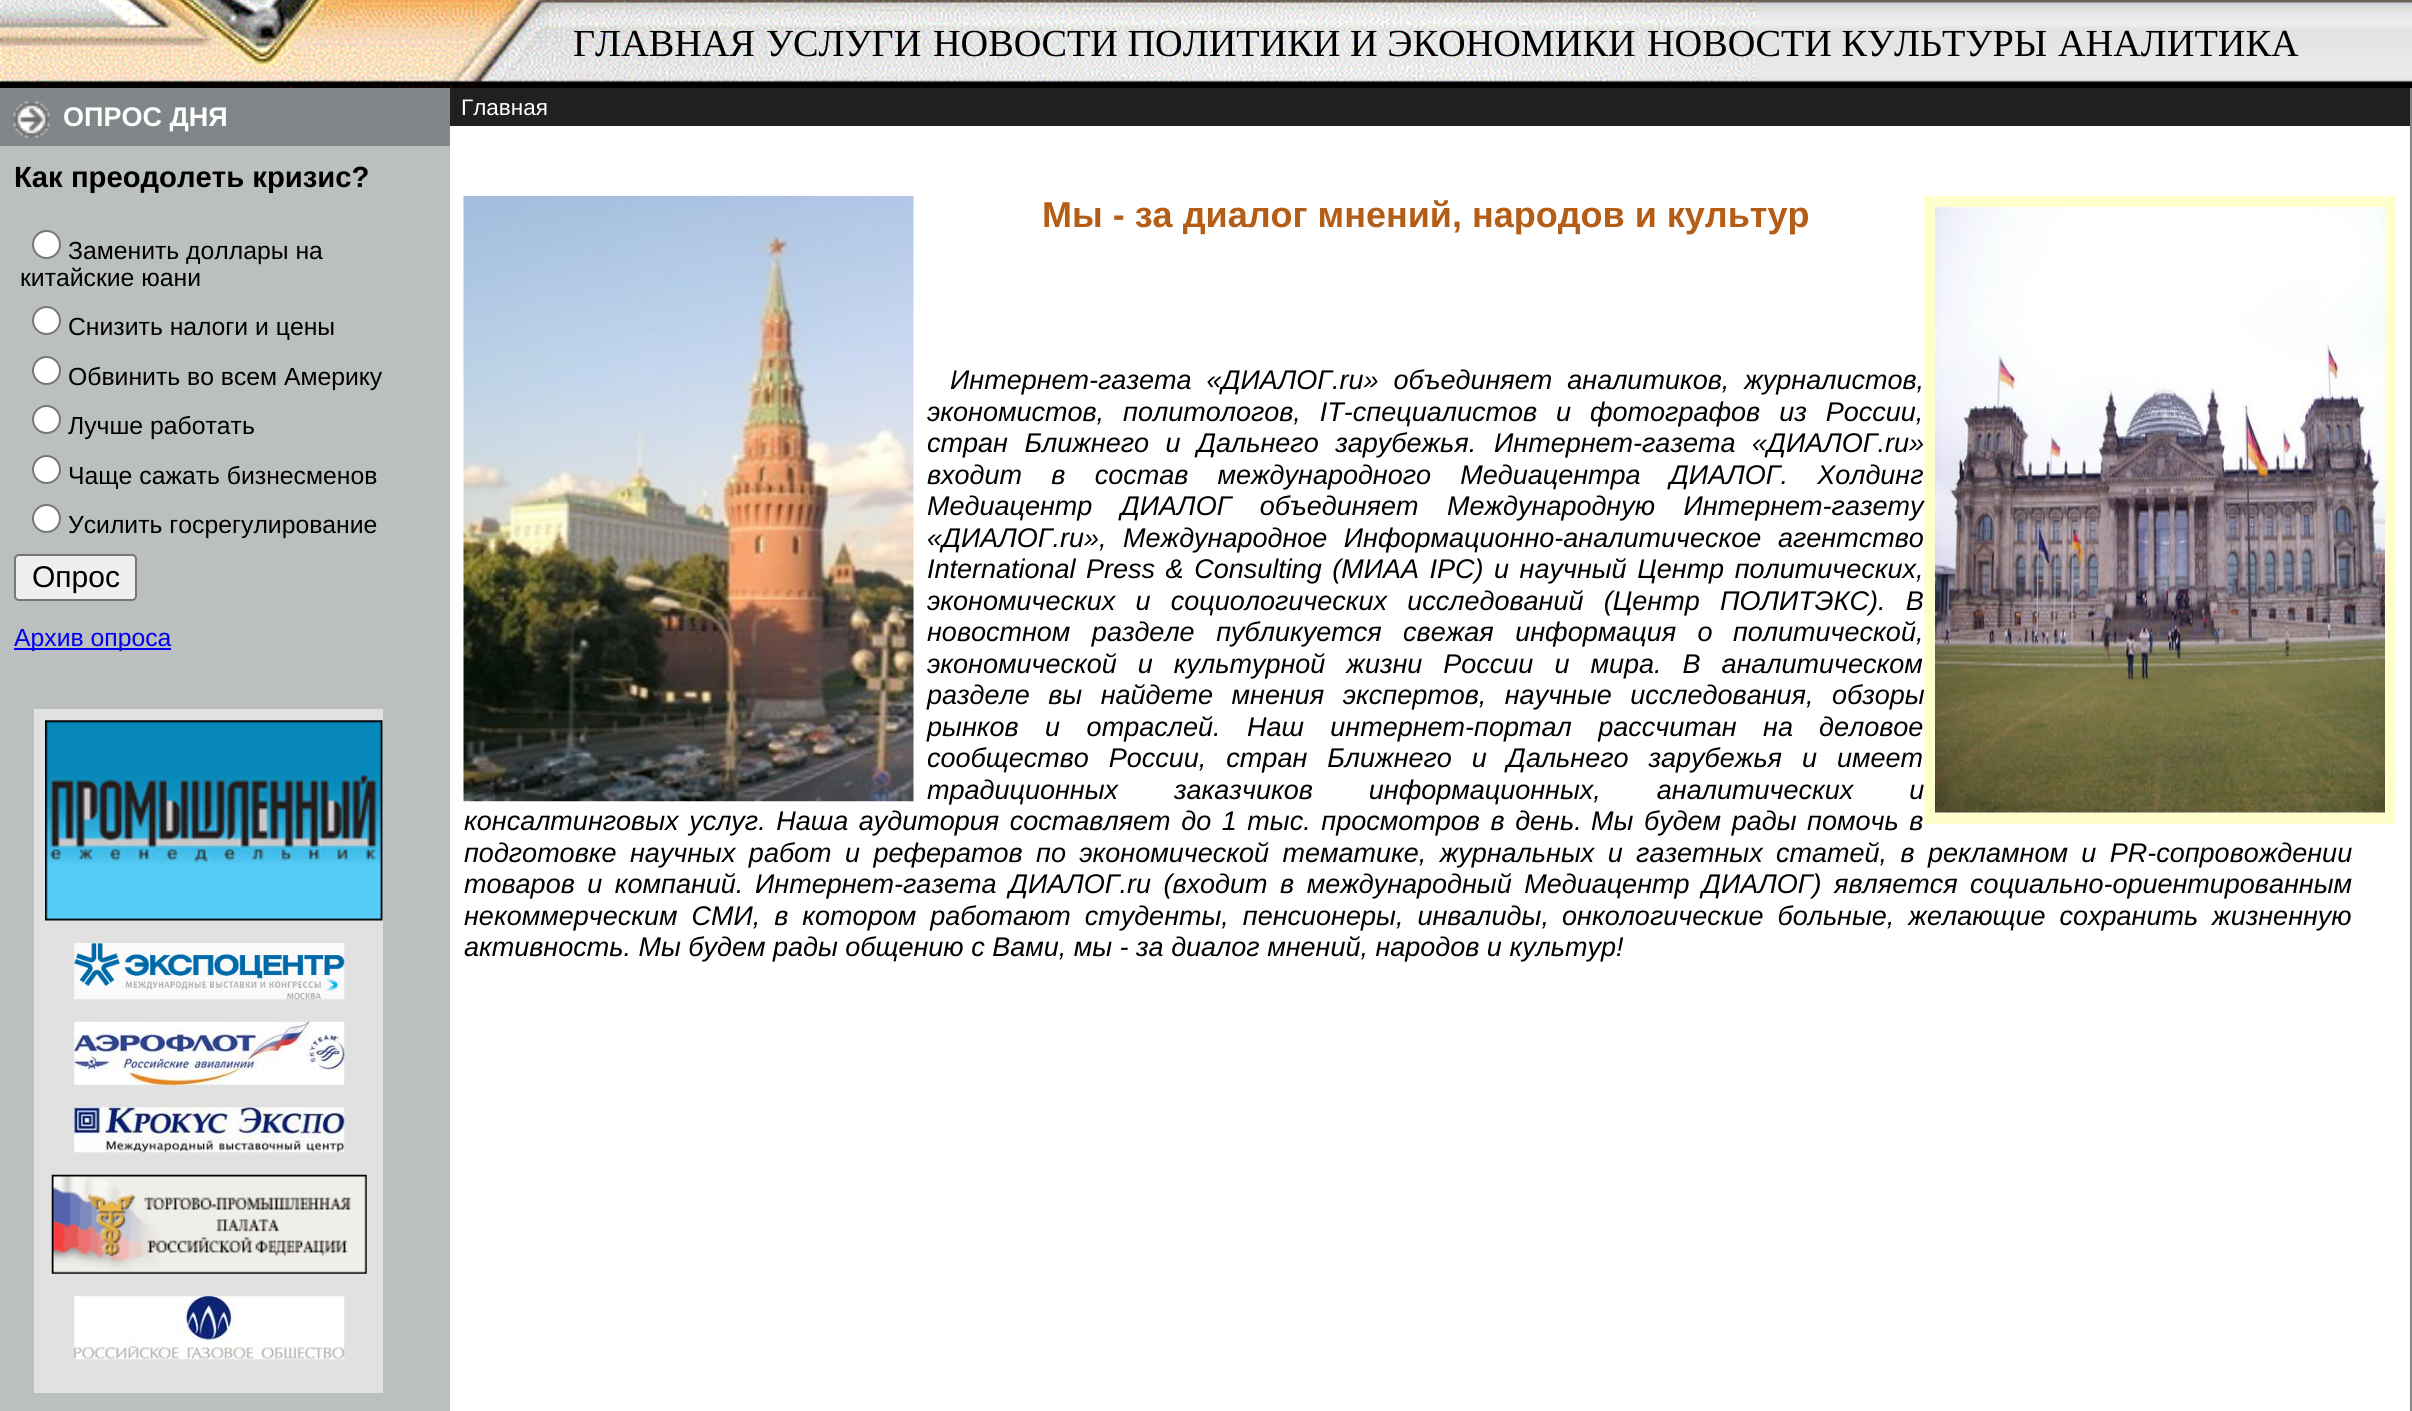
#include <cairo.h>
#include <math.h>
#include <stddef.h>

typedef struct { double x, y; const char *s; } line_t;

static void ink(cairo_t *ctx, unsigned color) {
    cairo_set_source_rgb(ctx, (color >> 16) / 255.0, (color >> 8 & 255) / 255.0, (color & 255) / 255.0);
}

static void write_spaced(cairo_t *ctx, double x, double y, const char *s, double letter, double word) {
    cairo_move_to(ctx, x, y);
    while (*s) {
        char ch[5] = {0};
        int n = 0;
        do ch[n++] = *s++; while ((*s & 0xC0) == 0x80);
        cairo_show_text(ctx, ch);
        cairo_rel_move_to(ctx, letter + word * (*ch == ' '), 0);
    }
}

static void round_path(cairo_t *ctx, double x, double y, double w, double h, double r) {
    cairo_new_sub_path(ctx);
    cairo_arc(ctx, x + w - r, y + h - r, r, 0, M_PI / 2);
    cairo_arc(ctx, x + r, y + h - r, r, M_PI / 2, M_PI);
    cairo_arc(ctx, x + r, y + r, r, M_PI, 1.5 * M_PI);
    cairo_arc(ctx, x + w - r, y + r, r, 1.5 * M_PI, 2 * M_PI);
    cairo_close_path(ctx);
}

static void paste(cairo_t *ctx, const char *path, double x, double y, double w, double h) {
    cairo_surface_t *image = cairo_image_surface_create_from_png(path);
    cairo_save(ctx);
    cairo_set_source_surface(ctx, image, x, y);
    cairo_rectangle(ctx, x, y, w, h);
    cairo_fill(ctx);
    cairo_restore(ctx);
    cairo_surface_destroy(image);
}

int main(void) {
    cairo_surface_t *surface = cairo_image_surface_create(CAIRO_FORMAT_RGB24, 2412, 1411);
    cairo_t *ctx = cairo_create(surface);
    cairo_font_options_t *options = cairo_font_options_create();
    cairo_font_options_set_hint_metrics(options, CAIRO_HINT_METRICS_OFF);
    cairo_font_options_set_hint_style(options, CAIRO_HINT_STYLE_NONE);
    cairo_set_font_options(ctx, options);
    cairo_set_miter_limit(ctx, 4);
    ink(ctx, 0xFFFFFF);
    cairo_paint(ctx);
    paste(ctx, "media/1.png", 1755, 0, 657, 88);
    paste(ctx, "media/2.png", 0, 0, 1755, 88);
    cairo_select_font_face(ctx, "Liberation Serif", CAIRO_FONT_SLANT_NORMAL, CAIRO_FONT_WEIGHT_NORMAL);
    cairo_set_font_size(ctx, 38.25);
    ink(ctx, 0x000000);
    {
        static const line_t items[] = {
            {573, 56, "ГЛАВНАЯ"},
            {766, 56, "УСЛУГИ"},
            {933, 56, "НОВОСТИ ПОЛИТИКИ И ЭКОНОМИКИ"},
            {1647, 56, "НОВОСТИ КУЛЬТУРЫ"},
            {2058, 56, "АНАЛИТИКА"},
        };
        for (size_t i = 0; i < sizeof items / sizeof *items; i++) {
            cairo_move_to(ctx, items[i].x, items[i].y);
            cairo_show_text(ctx, items[i].s);
        }
    }
    ink(ctx, 0x818689);
    cairo_rectangle(ctx, 2410, 88, 2, 1323);
    cairo_fill(ctx);
    cairo_rectangle(ctx, 0, 88, 450, 58);
    cairo_fill(ctx);
    paste(ctx, "media/3.png", 13, 101, 37, 37);
    cairo_select_font_face(ctx, "Liberation Sans", CAIRO_FONT_SLANT_NORMAL, CAIRO_FONT_WEIGHT_BOLD);
    cairo_set_font_size(ctx, 27);
    ink(ctx, 0xFFFFFF);
    cairo_move_to(ctx, 63, 126);
    cairo_show_text(ctx, "ОПРОС ДНЯ");
    ink(ctx, 0xBCBFC0);
    cairo_rectangle(ctx, 0, 146, 450, 1265);
    cairo_fill(ctx);
    cairo_set_font_size(ctx, 29.25);
    ink(ctx, 0x000000);
    cairo_move_to(ctx, 14, 187);
    cairo_show_text(ctx, "Как преодолеть кризис?");
    ink(ctx, 0xFFFFFF);
    cairo_new_path(ctx);
    cairo_arc(ctx, 46.5, 244.5, 13.5, 0, 2 * M_PI);
    cairo_fill_preserve(ctx);
    ink(ctx, 0x767676);
    cairo_stroke(ctx);
    cairo_select_font_face(ctx, "Liberation Sans", CAIRO_FONT_SLANT_NORMAL, CAIRO_FONT_WEIGHT_NORMAL);
    cairo_set_font_size(ctx, 24.75);
    ink(ctx, 0x000000);
    cairo_move_to(ctx, 68, 259);
    cairo_show_text(ctx, "Заменить доллары на");
    cairo_move_to(ctx, 20, 286);
    cairo_show_text(ctx, "китайские юани");
    ink(ctx, 0xFFFFFF);
    cairo_new_path(ctx);
    cairo_arc(ctx, 46.5, 320.5, 13.5, 0, 2 * M_PI);
    cairo_fill_preserve(ctx);
    ink(ctx, 0x767676);
    cairo_stroke(ctx);
    ink(ctx, 0x000000);
    cairo_move_to(ctx, 68, 335);
    cairo_show_text(ctx, "Снизить налоги и цены");
    ink(ctx, 0xFFFFFF);
    cairo_new_path(ctx);
    cairo_arc(ctx, 46.5, 370.5, 13.5, 0, 2 * M_PI);
    cairo_fill_preserve(ctx);
    ink(ctx, 0x767676);
    cairo_stroke(ctx);
    ink(ctx, 0x000000);
    cairo_move_to(ctx, 68, 385);
    cairo_show_text(ctx, "Обвинить во всем Америку");
    ink(ctx, 0xFFFFFF);
    cairo_new_path(ctx);
    cairo_arc(ctx, 46.5, 419.5, 13.5, 0, 2 * M_PI);
    cairo_fill_preserve(ctx);
    ink(ctx, 0x767676);
    cairo_stroke(ctx);
    ink(ctx, 0x000000);
    cairo_move_to(ctx, 68, 434);
    cairo_show_text(ctx, "Лучше работать");
    ink(ctx, 0xFFFFFF);
    cairo_new_path(ctx);
    cairo_arc(ctx, 46.5, 469.5, 13.5, 0, 2 * M_PI);
    cairo_fill_preserve(ctx);
    ink(ctx, 0x767676);
    cairo_stroke(ctx);
    ink(ctx, 0x000000);
    cairo_move_to(ctx, 68, 484);
    cairo_show_text(ctx, "Чаще сажать бизнесменов");
    ink(ctx, 0xFFFFFF);
    cairo_new_path(ctx);
    cairo_arc(ctx, 46.5, 518.5, 13.5, 0, 2 * M_PI);
    cairo_fill_preserve(ctx);
    ink(ctx, 0x767676);
    cairo_stroke(ctx);
    ink(ctx, 0x000000);
    cairo_move_to(ctx, 68, 533);
    cairo_show_text(ctx, "Усилить госрегулирование");
    ink(ctx, 0xEFEFEF);
    round_path(ctx, 15, 555, 121, 45, 4);
    cairo_fill_preserve(ctx);
    ink(ctx, 0x767676);
    cairo_stroke(ctx);
    cairo_set_font_size(ctx, 30);
    ink(ctx, 0x000000);
    cairo_move_to(ctx, 32, 587);
    cairo_show_text(ctx, "Опрос");
    ink(ctx, 0x0000EE);
    cairo_rectangle(ctx, 14, 648, 157, 2);
    cairo_fill(ctx);
    cairo_set_font_size(ctx, 24.75);
    cairo_move_to(ctx, 14, 646);
    cairo_show_text(ctx, "Архив опроса");
    ink(ctx, 0xE1E1E1);
    cairo_rectangle(ctx, 34, 709, 349, 684);
    cairo_fill(ctx);
    paste(ctx, "media/4.png", 45, 720, 338, 201);
    paste(ctx, "media/5.png", 74, 943, 271, 57);
    paste(ctx, "media/6.png", 74, 1021, 271, 64);
    paste(ctx, "media/7.png", 74, 1107, 271, 46);
    paste(ctx, "media/8.png", 51, 1174, 316, 100);
    paste(ctx, "media/9.png", 74, 1296, 271, 64);
    ink(ctx, 0x202020);
    cairo_rectangle(ctx, 450, 88, 1960, 38);
    cairo_fill(ctx);
    cairo_set_font_size(ctx, 22.5);
    ink(ctx, 0xFFFFFF);
    cairo_move_to(ctx, 461, 115);
    cairo_show_text(ctx, "Главная");
    paste(ctx, "media/10.png", 463, 196, 451, 606);
    cairo_rectangle(ctx, 1929.5, 201.5, 461, 617);
    ink(ctx, 0xFFFFCC);
    cairo_set_line_width(ctx, 11);
    cairo_stroke(ctx);
    paste(ctx, "media/11.png", 1935, 207, 450, 606);
    cairo_select_font_face(ctx, "Liberation Sans", CAIRO_FONT_SLANT_NORMAL, CAIRO_FONT_WEIGHT_BOLD);
    cairo_set_font_size(ctx, 36);
    ink(ctx, 0xB45D16);
    cairo_move_to(ctx, 1042, 227);
    cairo_show_text(ctx, "Мы - за диалог мнений, народов и культур");
    cairo_select_font_face(ctx, "Liberation Sans", CAIRO_FONT_SLANT_ITALIC, CAIRO_FONT_WEIGHT_NORMAL);
    cairo_set_font_size(ctx, 27);
    ink(ctx, 0x000000);
    write_spaced(ctx, 950, 389, "Интернет-газета «ДИАЛОГ.ru» объединяет аналитиков, журналистов,", 0, 7.5);
    write_spaced(ctx, 927, 421, "экономистов, политологов, IT-специалистов и фотографов из России,", 0, 11.5);
    write_spaced(ctx, 927, 452, "стран Ближнего и Дальнего зарубежья.", 0, 9);
    write_spaced(ctx, 1494, 452, "Интернет-газета «ДИАЛОГ.ru»", 0, 9);
    write_spaced(ctx, 927, 484, "входит в состав международного Медиацентра ДИАЛОГ. Холдинг", 0, 21.75);
    write_spaced(ctx, 927, 515, "Медиацентр ДИАЛОГ объединяет Международную Интернет-газету", 0, 21);
    write_spaced(ctx, 927, 547, "«ДИАЛОГ.ru», Международное Информационно-аналитическое", 0, 9);
    cairo_move_to(ctx, 1778, 547);
    cairo_show_text(ctx, "агентство");
    write_spaced(ctx, 927, 578, "International Press & Consulting (МИАА IPC) и научный Центр политических,", 0, 3);
    write_spaced(ctx, 927, 610, "экономических и социологических исследований (Центр ПОЛИТЭКС). В", 0, 12.75);
    write_spaced(ctx, 927, 641, "новостном разделе публикуется свежая информация о", 0, 14);
    cairo_move_to(ctx, 1733, 641);
    cairo_show_text(ctx, "политической,");
    write_spaced(ctx, 927, 673, "экономической и культурной жизни России и мира. В аналитическом", 0, 13.5);
    write_spaced(ctx, 927, 704, "разделе вы найдете мнения экспертов, научные исследования, обзоры", 0, 11);
    write_spaced(ctx, 927, 736, "рынков и отраслей. Наш интернет-портал рассчитан на", 0, 19);
    cairo_move_to(ctx, 1819, 736);
    cairo_show_text(ctx, "деловое");
    write_spaced(ctx, 927, 767, "сообщество России, стран Ближнего и Дальнего зарубежья и имеет", 0, 12.5);
    write_spaced(ctx, 927, 799, "традиционных заказчиков информационных, аналитических и", 0, 48.5);
    write_spaced(ctx, 464, 830, "консалтинговых услуг. Наша аудитория составляет до 1 тыс. просмотров в день.", 0, 3.1);
    write_spaced(ctx, 1591, 830, "Мы будем рады помочь в", 0, 3.1);
    write_spaced(ctx, 464, 862, "подготовке научных работ и рефератов по экономической тематике, журнальных и газетных статей, в рекламном и PR-сопровождении", 0, 5.9);
    write_spaced(ctx, 464, 893, "товаров и компаний.", 0, 5);
    write_spaced(ctx, 755, 893, "Интернет-газета ДИАЛОГ.ru (входит в международный Медиацентр ДИАЛОГ) является социально-ориентированным", 0, 5);
    write_spaced(ctx, 464, 925, "некоммерческим СМИ, в котором работают студенты, пенсионеры, инвалиды,", 0, 6.5);
    write_spaced(ctx, 1562, 925, "онкологические больные, желающие сохранить жизненную", 0, 6.5);
    cairo_move_to(ctx, 464, 956);
    cairo_show_text(ctx, "активность. Мы будем рады общению с Вами, мы - за диалог мнений, народов и культур!");
    cairo_surface_write_to_png(surface, "image.png");
    cairo_font_options_destroy(options);
    cairo_destroy(ctx);
    cairo_surface_destroy(surface);
    return 0;
}
